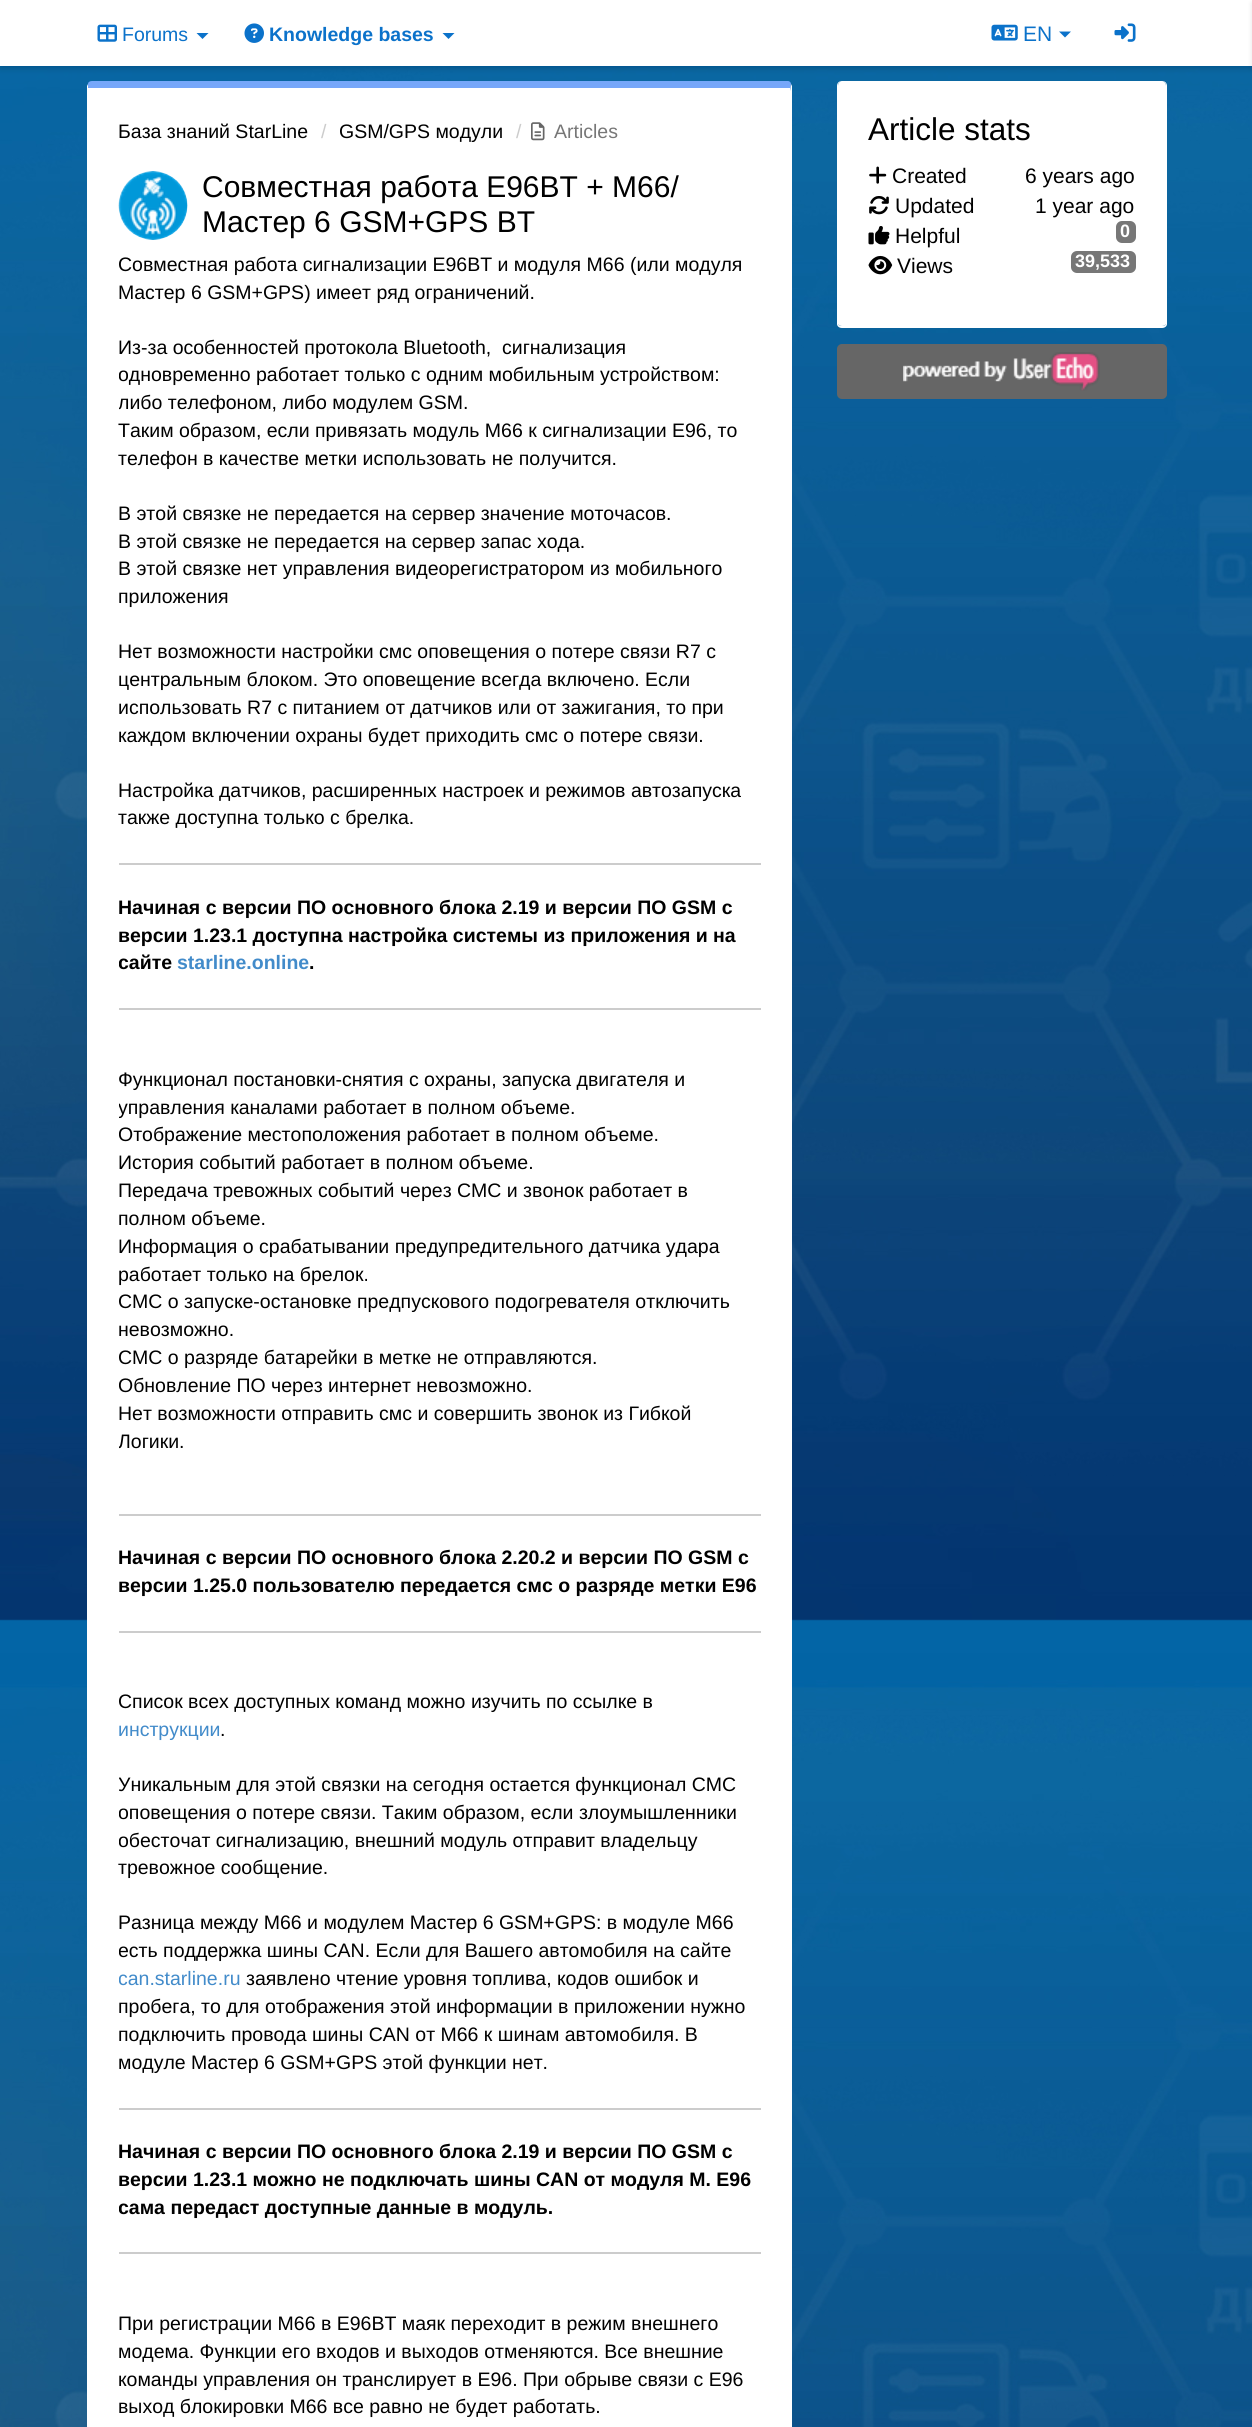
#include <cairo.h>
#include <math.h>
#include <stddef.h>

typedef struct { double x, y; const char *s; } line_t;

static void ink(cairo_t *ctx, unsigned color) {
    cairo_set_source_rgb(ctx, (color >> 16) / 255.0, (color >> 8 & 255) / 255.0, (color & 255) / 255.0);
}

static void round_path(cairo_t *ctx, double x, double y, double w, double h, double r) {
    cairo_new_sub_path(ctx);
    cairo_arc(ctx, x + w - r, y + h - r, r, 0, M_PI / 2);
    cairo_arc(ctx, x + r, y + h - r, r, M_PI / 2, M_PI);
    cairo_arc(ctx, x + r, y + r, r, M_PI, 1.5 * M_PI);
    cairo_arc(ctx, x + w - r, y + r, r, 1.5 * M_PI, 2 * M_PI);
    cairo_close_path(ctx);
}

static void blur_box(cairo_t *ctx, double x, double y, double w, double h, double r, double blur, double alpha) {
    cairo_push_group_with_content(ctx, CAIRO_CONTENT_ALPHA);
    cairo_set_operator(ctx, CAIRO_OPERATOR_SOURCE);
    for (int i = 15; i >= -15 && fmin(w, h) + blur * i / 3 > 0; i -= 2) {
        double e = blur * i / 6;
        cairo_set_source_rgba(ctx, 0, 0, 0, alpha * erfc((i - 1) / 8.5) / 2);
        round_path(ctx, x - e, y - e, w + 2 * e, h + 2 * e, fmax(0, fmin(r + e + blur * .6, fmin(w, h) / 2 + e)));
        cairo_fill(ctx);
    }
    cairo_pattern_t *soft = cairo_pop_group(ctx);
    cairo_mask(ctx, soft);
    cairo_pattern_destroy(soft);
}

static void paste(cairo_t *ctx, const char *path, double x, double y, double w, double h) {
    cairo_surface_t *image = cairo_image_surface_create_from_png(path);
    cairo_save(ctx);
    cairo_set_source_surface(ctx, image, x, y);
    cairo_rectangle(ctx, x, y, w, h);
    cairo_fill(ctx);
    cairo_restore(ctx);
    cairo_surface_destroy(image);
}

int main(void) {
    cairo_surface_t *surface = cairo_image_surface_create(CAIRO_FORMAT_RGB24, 1252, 2427);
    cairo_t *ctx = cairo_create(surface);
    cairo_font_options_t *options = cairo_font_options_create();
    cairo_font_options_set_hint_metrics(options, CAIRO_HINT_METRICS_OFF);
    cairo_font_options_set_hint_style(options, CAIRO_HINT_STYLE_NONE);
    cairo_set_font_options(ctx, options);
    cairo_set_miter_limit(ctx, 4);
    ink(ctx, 0xFFFFFF);
    cairo_paint(ctx);
    paste(ctx, "media/1.png", 0, 66, 1252, 2361);
    ink(ctx, 0x000000);
    blur_box(ctx, 0, 3, 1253, 66, 0, 3, 0.15);
    ink(ctx, 0xFFFFFF);
    cairo_rectangle(ctx, 0, 0, 1252, 66);
    cairo_fill(ctx);
    paste(ctx, "media/2.png", 97, 24, 20, 18);
    cairo_select_font_face(ctx, "Liberation Sans", CAIRO_FONT_SLANT_NORMAL, CAIRO_FONT_WEIGHT_NORMAL);
    cairo_set_font_size(ctx, 19.5);
    ink(ctx, 0x0B72CA);
    cairo_move_to(ctx, 122, 41);
    cairo_show_text(ctx, "Forums");
    cairo_new_path(ctx);
    cairo_move_to(ctx, 196.5, 33);
    cairo_line_to(ctx, 208.5, 33);
    cairo_line_to(ctx, 202.5, 39);
    cairo_close_path(ctx);
    cairo_fill(ctx);
    paste(ctx, "media/3.png", 244, 23, 20, 20);
    cairo_select_font_face(ctx, "Liberation Sans", CAIRO_FONT_SLANT_NORMAL, CAIRO_FONT_WEIGHT_BOLD);
    cairo_move_to(ctx, 269, 41);
    cairo_show_text(ctx, "Knowledge bases");
    cairo_new_path(ctx);
    cairo_move_to(ctx, 442.5, 33);
    cairo_line_to(ctx, 454.5, 33);
    cairo_line_to(ctx, 448.5, 39);
    cairo_close_path(ctx);
    cairo_fill(ctx);
    paste(ctx, "media/4.png", 991, 24, 27, 17);
    cairo_select_font_face(ctx, "Liberation Sans", CAIRO_FONT_SLANT_NORMAL, CAIRO_FONT_WEIGHT_NORMAL);
    cairo_set_font_size(ctx, 21);
    cairo_move_to(ctx, 1023, 41);
    cairo_show_text(ctx, "EN");
    cairo_new_path(ctx);
    cairo_move_to(ctx, 1059, 31.5);
    cairo_line_to(ctx, 1071, 31.5);
    cairo_line_to(ctx, 1065, 37.5);
    cairo_close_path(ctx);
    cairo_fill(ctx);
    paste(ctx, "media/5.png", 1114, 23, 22, 19);
    ink(ctx, 0x000000);
    blur_box(ctx, 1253, 3, 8, 66, 0, 3, 0.15);
    ink(ctx, 0xFFFFFF);
    cairo_new_path(ctx);
    cairo_move_to(ctx, 92, 88);
    cairo_line_to(ctx, 790, 88);
    cairo_line_to(ctx, 790, 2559);
    cairo_curve_to(ctx, 790, 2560, 789, 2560, 788, 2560);
    cairo_line_to(ctx, 92, 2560);
    cairo_curve_to(ctx, 90, 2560, 88, 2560, 88, 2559);
    cairo_line_to(ctx, 88, 88);
    cairo_close_path(ctx);
    cairo_fill(ctx);
    ink(ctx, 0x76A7FA);
    cairo_new_path(ctx);
    cairo_move_to(ctx, 92, 81);
    cairo_curve_to(ctx, 90, 81, 88, 82, 88, 84);
    cairo_line_to(ctx, 88, 88);
    cairo_line_to(ctx, 790, 88);
    cairo_line_to(ctx, 790, 91);
    cairo_line_to(ctx, 791, 84);
    cairo_curve_to(ctx, 791, 82, 789, 81, 788, 81);
    cairo_close_path(ctx);
    cairo_fill(ctx);
    ink(ctx, 0xFFFFFF);
    cairo_new_path(ctx);
    cairo_move_to(ctx, 792, 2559);
    cairo_line_to(ctx, 792, 86);
    cairo_line_to(ctx, 791, 84);
    cairo_line_to(ctx, 790, 91);
    cairo_line_to(ctx, 790, 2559);
    cairo_line_to(ctx, 791, 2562);
    cairo_close_path(ctx);
    cairo_fill(ctx);
    cairo_new_path(ctx);
    cairo_move_to(ctx, 87, 86);
    cairo_line_to(ctx, 87, 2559);
    cairo_line_to(ctx, 88, 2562);
    cairo_line_to(ctx, 89, 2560);
    cairo_line_to(ctx, 88, 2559);
    cairo_line_to(ctx, 88, 88);
    cairo_line_to(ctx, 88, 84);
    cairo_close_path(ctx);
    cairo_fill(ctx);
    cairo_set_font_size(ctx, 19.5);
    ink(ctx, 0x000000);
    cairo_move_to(ctx, 118, 138);
    cairo_show_text(ctx, "База знаний StarLine");
    ink(ctx, 0xCCCCCC);
    cairo_move_to(ctx, 321, 138);
    cairo_show_text(ctx, "/");
    ink(ctx, 0x000000);
    cairo_move_to(ctx, 339, 138);
    cairo_show_text(ctx, "GSM/GPS модули");
    ink(ctx, 0xCCCCCC);
    cairo_move_to(ctx, 516, 138);
    cairo_show_text(ctx, "/");
    paste(ctx, "media/6.png", 531, 122, 14, 19);
    ink(ctx, 0x777777);
    cairo_move_to(ctx, 554, 138);
    cairo_show_text(ctx, "Articles");
    paste(ctx, "media/7.png", 118, 171, 70, 69);
    cairo_set_font_size(ctx, 30);
    ink(ctx, 0x000000);
    cairo_move_to(ctx, 202, 197);
    cairo_show_text(ctx, "Совместная работа E96BT + M66/");
    cairo_move_to(ctx, 202, 232);
    cairo_show_text(ctx, "Мастер 6 GSM+GPS BT");
    cairo_save(ctx);
    cairo_rectangle(ctx, 119, 252, 642, 2171);
    cairo_clip(ctx);
    cairo_set_font_size(ctx, 19.5);
    cairo_move_to(ctx, 118, 271);
    cairo_show_text(ctx, "Совместная работа сигнализации E96BT и модуля M66 (или модуля");
    cairo_restore(ctx);
    cairo_set_font_size(ctx, 19.5);
    cairo_move_to(ctx, 118, 299);
    cairo_show_text(ctx, "Мастер 6 GSM+GPS) имеет ряд ограничений.");
    cairo_move_to(ctx, 118, 354);
    cairo_show_text(ctx, "Из-за особенностей протокола Bluetooth,  сигнализация");
    cairo_save(ctx);
    cairo_rectangle(ctx, 119, 252, 642, 2171);
    cairo_clip(ctx);
    cairo_move_to(ctx, 118, 381);
    cairo_show_text(ctx, "одновременно работает только с одним мобильным устройством:");
    cairo_move_to(ctx, 118, 409);
    cairo_show_text(ctx, "либо телефоном, либо модулем GSM.");
    cairo_restore(ctx);
    {
        static const line_t items[] = {
            {118, 437, "Таким образом, если привязать модуль М66 к сигнализации Е96, то"},
            {118, 465, "телефон в качестве метки использовать не получится."},
            {118, 520, "В этой связке не передается на сервер значение моточасов."},
            {118, 548, "В этой связке не передается на сервер запас хода."},
            {118, 575, "В этой связке нет управления видеорегистратором из мобильного"},
            {118, 603, "приложения"},
            {118, 658, "Нет возможности настройки смс оповещения о потере связи R7 с"},
            {118, 686, "центральным блоком. Это оповещение всегда включено. Если"},
            {118, 714, "использовать R7 с питанием от датчиков или от зажигания, то при"},
            {118, 742, "каждом включении охраны будет приходить смс о потере связи."},
            {118, 797, "Настройка датчиков, расширенных настроек и режимов автозапуска"},
            {118, 824, "также доступна только с брелка."},
        };
        for (size_t i = 0; i < sizeof items / sizeof *items; i++) {
            cairo_move_to(ctx, items[i].x, items[i].y);
            cairo_show_text(ctx, items[i].s);
        }
    }
    ink(ctx, 0xCCCCCC);
    cairo_rectangle(ctx, 119, 863, 642, 2);
    cairo_fill(ctx);
    cairo_select_font_face(ctx, "Liberation Sans", CAIRO_FONT_SLANT_NORMAL, CAIRO_FONT_WEIGHT_BOLD);
    ink(ctx, 0x000000);
    cairo_move_to(ctx, 118, 914);
    cairo_show_text(ctx, "Начиная с версии ПО основного блока 2.19 и версии ПО GSM с");
    cairo_move_to(ctx, 118, 942);
    cairo_show_text(ctx, "версии 1.23.1 доступна настройка системы из приложения и на");
    cairo_save(ctx);
    cairo_rectangle(ctx, 119, 252, 642, 2171);
    cairo_clip(ctx);
    cairo_move_to(ctx, 118, 969);
    cairo_show_text(ctx, "сайте");
    cairo_restore(ctx);
    ink(ctx, 0x428BCA);
    cairo_move_to(ctx, 177, 969);
    cairo_show_text(ctx, "starline.online");
    ink(ctx, 0x000000);
    cairo_move_to(ctx, 309, 969);
    cairo_show_text(ctx, ".");
    ink(ctx, 0xCCCCCC);
    cairo_rectangle(ctx, 119, 1008, 642, 2);
    cairo_fill(ctx);
    cairo_select_font_face(ctx, "Liberation Sans", CAIRO_FONT_SLANT_NORMAL, CAIRO_FONT_WEIGHT_NORMAL);
    ink(ctx, 0x000000);
    cairo_move_to(ctx, 118, 1086);
    cairo_show_text(ctx, "Функционал постановки-снятия с охраны, запуска двигателя и");
    cairo_save(ctx);
    cairo_rectangle(ctx, 119, 252, 642, 2171);
    cairo_clip(ctx);
    cairo_move_to(ctx, 118, 1114);
    cairo_show_text(ctx, "управления каналами работает в полном объеме.");
    cairo_move_to(ctx, 118, 1141);
    cairo_show_text(ctx, "Отображение местоположения работает в полном объеме.");
    cairo_restore(ctx);
    {
        static const line_t items[] = {
            {118, 1169, "История событий работает в полном объеме."},
            {118, 1197, "Передача тревожных событий через СМС и звонок работает в"},
            {118, 1225, "полном объеме."},
            {118, 1253, "Информация о срабатывании предупредительного датчика удара"},
            {118, 1281, "работает только на брелок."},
        };
        for (size_t i = 0; i < sizeof items / sizeof *items; i++) {
            cairo_move_to(ctx, items[i].x, items[i].y);
            cairo_show_text(ctx, items[i].s);
        }
    }
    cairo_save(ctx);
    cairo_rectangle(ctx, 119, 252, 642, 2171);
    cairo_clip(ctx);
    cairo_move_to(ctx, 118, 1308);
    cairo_show_text(ctx, "СМС о запуске-остановке предпускового подогревателя отключить");
    cairo_restore(ctx);
    cairo_move_to(ctx, 118, 1336);
    cairo_show_text(ctx, "невозможно.");
    cairo_save(ctx);
    cairo_rectangle(ctx, 119, 252, 642, 2171);
    cairo_clip(ctx);
    cairo_move_to(ctx, 118, 1364);
    cairo_show_text(ctx, "СМС о разряде батарейки в метке не отправляются.");
    cairo_move_to(ctx, 118, 1392);
    cairo_show_text(ctx, "Обновление ПО через интернет невозможно.");
    cairo_restore(ctx);
    cairo_move_to(ctx, 118, 1420);
    cairo_show_text(ctx, "Нет возможности отправить смс и совершить звонок из Гибкой");
    cairo_save(ctx);
    cairo_rectangle(ctx, 119, 252, 642, 2171);
    cairo_clip(ctx);
    cairo_move_to(ctx, 118, 1448);
    cairo_show_text(ctx, "Логики.");
    cairo_restore(ctx);
    ink(ctx, 0xCCCCCC);
    cairo_rectangle(ctx, 119, 1514, 642, 2);
    cairo_fill(ctx);
    cairo_select_font_face(ctx, "Liberation Sans", CAIRO_FONT_SLANT_NORMAL, CAIRO_FONT_WEIGHT_BOLD);
    ink(ctx, 0x000000);
    cairo_move_to(ctx, 118, 1564);
    cairo_show_text(ctx, "Начиная с версии ПО основного блока 2.20.2 и версии ПО GSM с");
    cairo_move_to(ctx, 118, 1592);
    cairo_show_text(ctx, "версии 1.25.0 пользователю передается смс о разряде метки Е96");
    ink(ctx, 0xCCCCCC);
    cairo_rectangle(ctx, 119, 1631, 642, 2);
    cairo_fill(ctx);
    cairo_save(ctx);
    cairo_rectangle(ctx, 119, 252, 642, 2171);
    cairo_clip(ctx);
    cairo_select_font_face(ctx, "Liberation Sans", CAIRO_FONT_SLANT_NORMAL, CAIRO_FONT_WEIGHT_NORMAL);
    ink(ctx, 0x000000);
    cairo_move_to(ctx, 118, 1708);
    cairo_show_text(ctx, "Список всех доступных команд можно изучить по ссылке в");
    cairo_restore(ctx);
    cairo_select_font_face(ctx, "Liberation Sans", CAIRO_FONT_SLANT_NORMAL, CAIRO_FONT_WEIGHT_NORMAL);
    ink(ctx, 0x428BCA);
    cairo_move_to(ctx, 118, 1736);
    cairo_show_text(ctx, "инструкции");
    ink(ctx, 0x000000);
    cairo_move_to(ctx, 220, 1736);
    cairo_show_text(ctx, ".");
    cairo_save(ctx);
    cairo_rectangle(ctx, 119, 252, 642, 2171);
    cairo_clip(ctx);
    {
        static const line_t items[] = {
            {118, 1791, "Уникальным для этой связки на сегодня остается функционал СМС"},
            {118, 1819, "оповещения о потере связи. Таким образом, если злоумышленники"},
            {118, 1847, "обесточат сигнализацию, внешний модуль отправит владельцу"},
        };
        for (size_t i = 0; i < sizeof items / sizeof *items; i++) {
            cairo_move_to(ctx, items[i].x, items[i].y);
            cairo_show_text(ctx, items[i].s);
        }
    }
    cairo_restore(ctx);
    cairo_move_to(ctx, 118, 1874);
    cairo_show_text(ctx, "тревожное сообщение.");
    cairo_move_to(ctx, 118, 1929);
    cairo_show_text(ctx, "Разница между М66 и модулем Мастер 6 GSM+GPS: в модуле М66");
    cairo_save(ctx);
    cairo_rectangle(ctx, 119, 252, 642, 2171);
    cairo_clip(ctx);
    cairo_move_to(ctx, 118, 1957);
    cairo_show_text(ctx, "есть поддержка шины CAN. Если для Вашего автомобиля на сайте");
    ink(ctx, 0x428BCA);
    cairo_move_to(ctx, 118, 1985);
    cairo_show_text(ctx, "can.starline.ru");
    cairo_restore(ctx);
    {
        static const line_t items[] = {
            {246, 1985, "заявлено чтение уровня топлива, кодов ошибок и"},
            {118, 2013, "пробега, то для отображения этой информации в приложении нужно"},
            {118, 2041, "подключить провода шины CAN от М66 к шинам автомобиля. В"},
            {118, 2069, "модуле Мастер 6 GSM+GPS этой функции нет."},
        };
        for (size_t i = 0; i < sizeof items / sizeof *items; i++) {
            cairo_move_to(ctx, items[i].x, items[i].y);
            cairo_show_text(ctx, items[i].s);
        }
    }
    ink(ctx, 0xCCCCCC);
    cairo_rectangle(ctx, 119, 2108, 642, 2);
    cairo_fill(ctx);
    cairo_select_font_face(ctx, "Liberation Sans", CAIRO_FONT_SLANT_NORMAL, CAIRO_FONT_WEIGHT_BOLD);
    ink(ctx, 0x000000);
    cairo_move_to(ctx, 118, 2158);
    cairo_show_text(ctx, "Начиная с версии ПО основного блока 2.19 и версии ПО GSM с");
    cairo_move_to(ctx, 118, 2186);
    cairo_show_text(ctx, "версии 1.23.1 можно не подключать шины CAN от модуля М. Е96");
    cairo_save(ctx);
    cairo_rectangle(ctx, 119, 252, 642, 2171);
    cairo_clip(ctx);
    cairo_move_to(ctx, 118, 2214);
    cairo_show_text(ctx, "сама передаст доступные данные в модуль.");
    cairo_restore(ctx);
    ink(ctx, 0xCCCCCC);
    cairo_rectangle(ctx, 119, 2252, 642, 2);
    cairo_fill(ctx);
    cairo_select_font_face(ctx, "Liberation Sans", CAIRO_FONT_SLANT_NORMAL, CAIRO_FONT_WEIGHT_NORMAL);
    ink(ctx, 0x000000);
    {
        static const line_t items[] = {
            {118, 2330, "При регистрации М66 в Е96ВТ маяк переходит в режим внешнего"},
            {118, 2358, "модема. Функции его входов и выходов отменяются. Все внешние"},
            {118, 2386, "команды управления он транслирует в Е96. При обрыве связи с Е96"},
            {118, 2413, "выход блокировки М66 все равно не будет работать."},
        };
        for (size_t i = 0; i < sizeof items / sizeof *items; i++) {
            cairo_move_to(ctx, items[i].x, items[i].y);
            cairo_show_text(ctx, items[i].s);
        }
    }
    ink(ctx, 0xFFFFFF);
    cairo_new_path(ctx);
    cairo_move_to(ctx, 842, 81);
    cairo_line_to(ctx, 1162, 81);
    cairo_curve_to(ctx, 1164, 81, 1166, 83, 1166, 86);
    cairo_line_to(ctx, 1166, 324);
    cairo_curve_to(ctx, 1166, 325, 1164, 326, 1162, 326);
    cairo_line_to(ctx, 842, 326);
    cairo_curve_to(ctx, 840, 326, 838, 325, 838, 324);
    cairo_line_to(ctx, 838, 86);
    cairo_curve_to(ctx, 838, 83, 840, 81, 842, 81);
    cairo_close_path(ctx);
    cairo_fill(ctx);
    cairo_set_fill_rule(ctx, CAIRO_FILL_RULE_EVEN_ODD);
    cairo_new_path(ctx);
    cairo_move_to(ctx, 842, 81);
    cairo_line_to(ctx, 1162, 81);
    cairo_curve_to(ctx, 1165, 81, 1167, 83, 1167, 86);
    cairo_line_to(ctx, 1167, 324);
    cairo_curve_to(ctx, 1167, 326, 1165, 328, 1162, 328);
    cairo_line_to(ctx, 842, 328);
    cairo_curve_to(ctx, 839, 328, 837, 326, 837, 324);
    cairo_line_to(ctx, 837, 86);
    cairo_curve_to(ctx, 837, 83, 839, 81, 842, 81);
    cairo_close_path(ctx);
    cairo_move_to(ctx, 842, 81);
    cairo_line_to(ctx, 1162, 81);
    cairo_curve_to(ctx, 1164, 81, 1166, 83, 1166, 86);
    cairo_line_to(ctx, 1166, 324);
    cairo_curve_to(ctx, 1166, 325, 1164, 326, 1162, 326);
    cairo_line_to(ctx, 842, 326);
    cairo_curve_to(ctx, 840, 326, 838, 325, 838, 324);
    cairo_line_to(ctx, 838, 86);
    cairo_curve_to(ctx, 838, 83, 840, 81, 842, 81);
    cairo_close_path(ctx);
    cairo_fill(ctx);
    cairo_set_font_size(ctx, 31.5);
    ink(ctx, 0x000000);
    cairo_move_to(ctx, 868, 140);
    cairo_show_text(ctx, "Article stats");
    paste(ctx, "media/8.png", 869, 166, 18, 18);
    cairo_set_font_size(ctx, 21);
    cairo_move_to(ctx, 892, 183);
    cairo_show_text(ctx, "Created");
    cairo_move_to(ctx, 1025, 183);
    cairo_show_text(ctx, "6 years ago");
    paste(ctx, "media/9.png", 869, 196, 20, 19);
    cairo_move_to(ctx, 895, 213);
    cairo_show_text(ctx, "Updated");
    cairo_move_to(ctx, 1035, 213);
    cairo_show_text(ctx, "1 year ago");
    paste(ctx, "media/10.png", 868, 226, 22, 19);
    cairo_move_to(ctx, 895, 243);
    cairo_show_text(ctx, "Helpful");
    ink(ctx, 0x777777);
    round_path(ctx, 1116, 221, 20, 22, 6);
    cairo_fill(ctx);
    cairo_select_font_face(ctx, "Liberation Sans", CAIRO_FONT_SLANT_NORMAL, CAIRO_FONT_WEIGHT_BOLD);
    cairo_set_font_size(ctx, 18);
    ink(ctx, 0xFFFFFF);
    cairo_move_to(ctx, 1120, 237);
    cairo_show_text(ctx, "0");
    paste(ctx, "media/11.png", 868, 255, 25, 20);
    cairo_select_font_face(ctx, "Liberation Sans", CAIRO_FONT_SLANT_NORMAL, CAIRO_FONT_WEIGHT_NORMAL);
    cairo_set_font_size(ctx, 21);
    ink(ctx, 0x000000);
    cairo_move_to(ctx, 897, 273);
    cairo_show_text(ctx, "Views");
    ink(ctx, 0x777777);
    round_path(ctx, 1071, 251, 65, 22, 6);
    cairo_fill(ctx);
    cairo_select_font_face(ctx, "Liberation Sans", CAIRO_FONT_SLANT_NORMAL, CAIRO_FONT_WEIGHT_BOLD);
    cairo_set_font_size(ctx, 18);
    ink(ctx, 0xFFFFFF);
    cairo_move_to(ctx, 1075, 267);
    cairo_show_text(ctx, "39,533");
    ink(ctx, 0x666666);
    round_path(ctx, 837, 344, 330, 55, 5);
    cairo_fill(ctx);
    paste(ctx, "media/12.png", 903, 352, 197, 39);
    cairo_surface_write_to_png(surface, "image.png");
    cairo_font_options_destroy(options);
    cairo_destroy(ctx);
    cairo_surface_destroy(surface);
    return 0;
}
